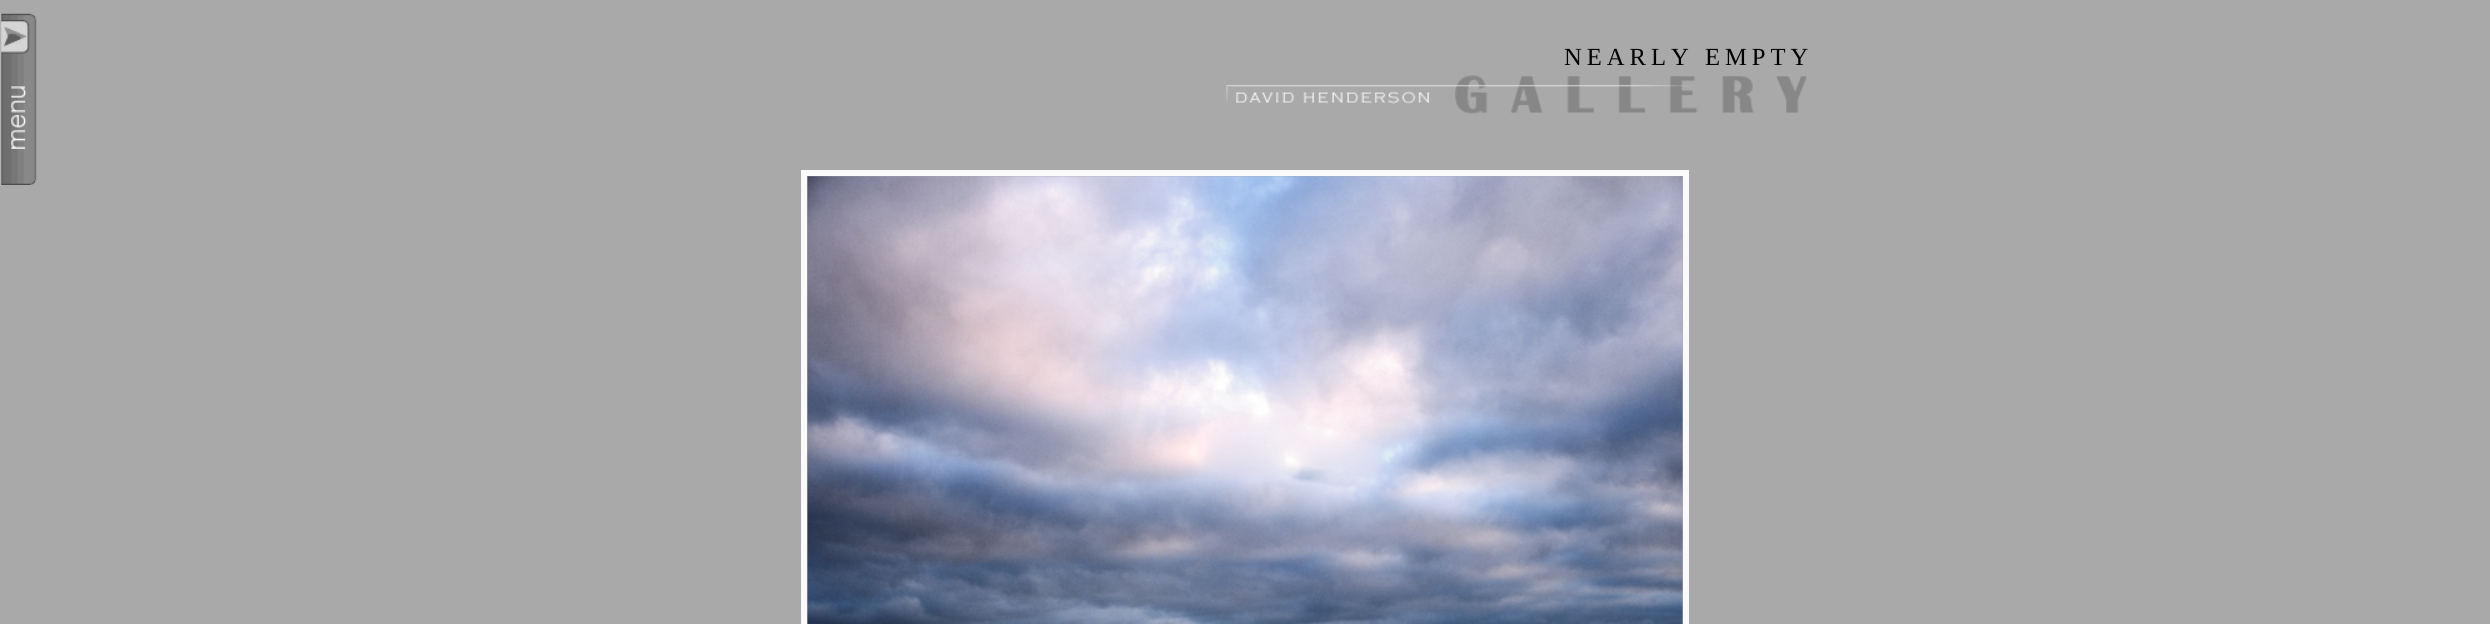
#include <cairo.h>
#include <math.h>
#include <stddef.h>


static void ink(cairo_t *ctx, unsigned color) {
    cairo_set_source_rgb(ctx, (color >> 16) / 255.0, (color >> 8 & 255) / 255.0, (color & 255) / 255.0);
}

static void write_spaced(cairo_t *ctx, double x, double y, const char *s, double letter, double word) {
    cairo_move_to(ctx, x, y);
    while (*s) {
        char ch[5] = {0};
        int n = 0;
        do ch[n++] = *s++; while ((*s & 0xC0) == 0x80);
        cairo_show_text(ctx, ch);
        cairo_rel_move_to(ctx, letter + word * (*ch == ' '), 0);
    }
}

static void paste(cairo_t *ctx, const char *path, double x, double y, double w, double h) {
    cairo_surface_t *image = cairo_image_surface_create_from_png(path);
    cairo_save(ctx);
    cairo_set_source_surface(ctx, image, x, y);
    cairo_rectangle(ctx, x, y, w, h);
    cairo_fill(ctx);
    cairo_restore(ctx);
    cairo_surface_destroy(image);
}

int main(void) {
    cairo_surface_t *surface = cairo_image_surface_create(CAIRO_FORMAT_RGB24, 2490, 624);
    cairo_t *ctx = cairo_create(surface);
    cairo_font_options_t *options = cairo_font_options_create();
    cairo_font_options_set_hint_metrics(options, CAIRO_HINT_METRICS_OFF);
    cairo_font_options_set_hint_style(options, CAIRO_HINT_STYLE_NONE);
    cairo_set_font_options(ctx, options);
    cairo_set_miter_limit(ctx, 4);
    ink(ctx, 0xA9A9A9);
    cairo_paint(ctx);
    ink(ctx, 0xB3B3B3);
    cairo_new_path(ctx);
    cairo_move_to(ctx, 0, 13);
    cairo_line_to(ctx, 3, 13);
    cairo_line_to(ctx, 3, 183.5);
    cairo_curve_to(ctx, 3, 185, 2, 186, 0.5, 186);
    cairo_line_to(ctx, 0, 186);
    cairo_close_path(ctx);
    cairo_fill(ctx);
    paste(ctx, "media/1.png", 1, 13, 36, 172);
    cairo_select_font_face(ctx, "Liberation Serif", CAIRO_FONT_SLANT_NORMAL, CAIRO_FONT_WEIGHT_NORMAL);
    cairo_set_font_size(ctx, 24.6);
    ink(ctx, 0x000000);
    write_spaced(ctx, 1564, 65, "NEARLY EMPTY", 5, 0);
    paste(ctx, "media/2.png", 1226, 75, 581, 39);
    cairo_rectangle(ctx, 804, 173, 882, 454);
    ink(ctx, 0xFAFAFA);
    cairo_set_line_width(ctx, 6);
    cairo_stroke(ctx);
    paste(ctx, "media/3.png", 807, 176, 876, 448);
    cairo_surface_write_to_png(surface, "image.png");
    cairo_font_options_destroy(options);
    cairo_destroy(ctx);
    cairo_surface_destroy(surface);
    return 0;
}
